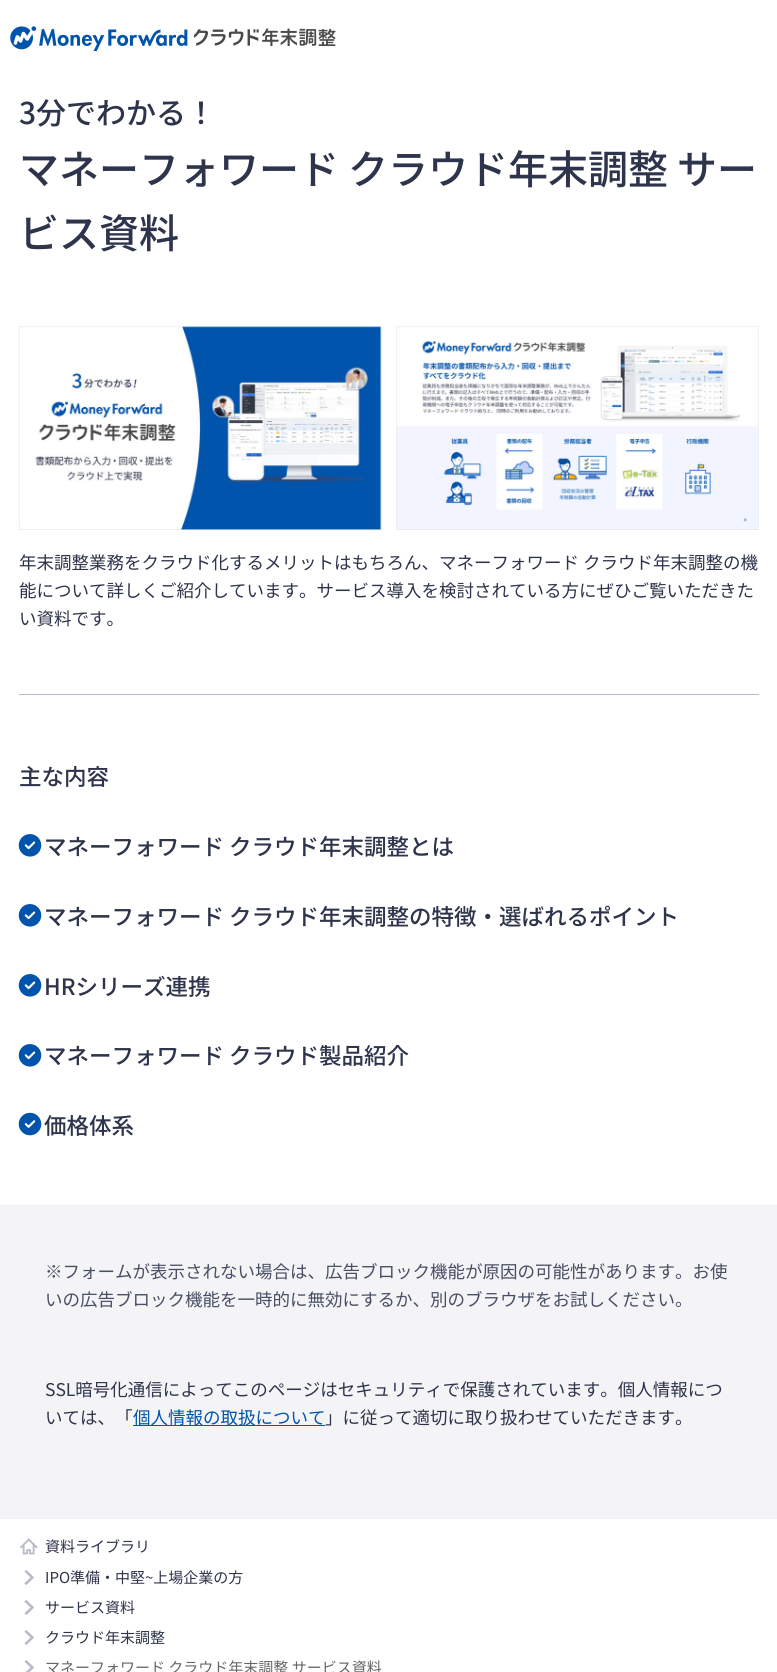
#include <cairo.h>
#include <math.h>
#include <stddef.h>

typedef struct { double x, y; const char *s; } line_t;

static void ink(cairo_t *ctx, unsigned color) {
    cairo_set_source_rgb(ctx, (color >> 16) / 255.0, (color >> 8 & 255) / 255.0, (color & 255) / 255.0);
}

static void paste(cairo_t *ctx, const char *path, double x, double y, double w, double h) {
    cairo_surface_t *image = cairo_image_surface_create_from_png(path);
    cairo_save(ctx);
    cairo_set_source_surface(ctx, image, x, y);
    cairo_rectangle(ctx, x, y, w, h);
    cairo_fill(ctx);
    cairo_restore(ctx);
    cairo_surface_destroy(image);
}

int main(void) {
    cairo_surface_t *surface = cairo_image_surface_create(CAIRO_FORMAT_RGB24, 777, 1672);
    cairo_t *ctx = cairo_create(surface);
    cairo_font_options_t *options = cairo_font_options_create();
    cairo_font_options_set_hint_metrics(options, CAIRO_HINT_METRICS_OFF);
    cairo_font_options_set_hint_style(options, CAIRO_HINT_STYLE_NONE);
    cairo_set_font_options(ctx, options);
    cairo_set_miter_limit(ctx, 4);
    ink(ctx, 0xFFFFFF);
    cairo_paint(ctx);
    paste(ctx, "media/1.png", 10, 26, 326, 25);
    cairo_select_font_face(ctx, "Noto Sans JP Medium", CAIRO_FONT_SLANT_NORMAL, CAIRO_FONT_WEIGHT_NORMAL);
    cairo_set_font_size(ctx, 30);
    ink(ctx, 0x2D344B);
    cairo_move_to(ctx, 19, 124);
    cairo_show_text(ctx, "3分でわかる！");
    cairo_set_font_size(ctx, 40);
    cairo_move_to(ctx, 19, 184);
    cairo_show_text(ctx, "マネーフォワード クラウド年末調整 サー");
    cairo_move_to(ctx, 19, 248);
    cairo_show_text(ctx, "ビス資料");
    paste(ctx, "media/2.png", 18, 326, 364, 204);
    paste(ctx, "media/3.png", 396, 326, 363, 204);
    cairo_select_font_face(ctx, "Noto Sans JP", CAIRO_FONT_SLANT_NORMAL, CAIRO_FONT_WEIGHT_NORMAL);
    cairo_set_font_size(ctx, 17.5);
    {
        static const line_t items[] = {
            {19, 569, "年末調整業務をクラウド化するメリットはもちろん、マネーフォワード クラウド年末調整の機"},
            {19, 597, "能について詳しくご紹介しています。サービス導入を検討されている方にぜひご覧いただきた"},
            {19, 625, "い資料です。"},
        };
        for (size_t i = 0; i < sizeof items / sizeof *items; i++) {
            cairo_move_to(ctx, items[i].x, items[i].y);
            cairo_show_text(ctx, items[i].s);
        }
    }
    ink(ctx, 0xB8BCC9);
    cairo_rectangle(ctx, 19, 694, 740, 1);
    cairo_fill(ctx);
    cairo_select_font_face(ctx, "Noto Sans JP Medium", CAIRO_FONT_SLANT_NORMAL, CAIRO_FONT_WEIGHT_NORMAL);
    cairo_set_font_size(ctx, 22.5);
    ink(ctx, 0x2D344B);
    cairo_move_to(ctx, 19, 785);
    cairo_show_text(ctx, "主な内容");
    paste(ctx, "media/4.png", 18, 834, 24, 23);
    cairo_move_to(ctx, 44, 855);
    cairo_show_text(ctx, "マネーフォワード クラウド年末調整とは");
    paste(ctx, "media/4.png", 18, 904, 24, 23);
    cairo_move_to(ctx, 44, 925);
    cairo_show_text(ctx, "マネーフォワード クラウド年末調整の特徴・選ばれるポイント");
    paste(ctx, "media/4.png", 18, 974, 24, 23);
    cairo_move_to(ctx, 44, 995);
    cairo_show_text(ctx, "HRシリーズ連携");
    paste(ctx, "media/4.png", 18, 1044, 24, 23);
    cairo_move_to(ctx, 44, 1064);
    cairo_show_text(ctx, "マネーフォワード クラウド製品紹介");
    paste(ctx, "media/5.png", 18, 1112, 24, 24);
    cairo_move_to(ctx, 44, 1134);
    cairo_show_text(ctx, "価格体系");
    ink(ctx, 0xF4F4F7);
    cairo_rectangle(ctx, 0, 1205, 777, 314);
    cairo_fill(ctx);
    cairo_select_font_face(ctx, "Noto Sans JP", CAIRO_FONT_SLANT_NORMAL, CAIRO_FONT_WEIGHT_NORMAL);
    cairo_set_font_size(ctx, 17.5);
    ink(ctx, 0x484F65);
    cairo_move_to(ctx, 45, 1278);
    cairo_show_text(ctx, "※フォームが表示されない場合は、広告ブロック機能が原因の可能性があります。お使");
    cairo_move_to(ctx, 45, 1306);
    cairo_show_text(ctx, "いの広告ブロック機能を一時的に無効にするか、別のブラウザをお試しください。");
    ink(ctx, 0x2D344B);
    cairo_move_to(ctx, 45, 1396);
    cairo_show_text(ctx, "SSL暗号化通信によってこのページはセキュリティで保護されています。個人情報につ");
    cairo_move_to(ctx, 45, 1424);
    cairo_show_text(ctx, "いては、「");
    ink(ctx, 0x0054AC);
    cairo_rectangle(ctx, 133, 1425, 192, 1);
    cairo_fill(ctx);
    cairo_move_to(ctx, 133, 1424);
    cairo_show_text(ctx, "個人情報の取扱について");
    ink(ctx, 0x2D344B);
    cairo_move_to(ctx, 325, 1424);
    cairo_show_text(ctx, "」に従って適切に取り扱わせていただきます。");
    paste(ctx, "media/6.png", 19, 1538, 19, 17);
    cairo_set_font_size(ctx, 15);
    cairo_move_to(ctx, 45, 1552);
    cairo_show_text(ctx, "資料ライブラリ");
    paste(ctx, "media/7.png", 24, 1570, 10, 15);
    cairo_move_to(ctx, 45, 1583);
    cairo_show_text(ctx, "IPO準備・中堅~上場企業の方");
    paste(ctx, "media/7.png", 24, 1600, 10, 15);
    cairo_move_to(ctx, 45, 1613);
    cairo_show_text(ctx, "サービス資料");
    paste(ctx, "media/7.png", 24, 1630, 10, 15);
    cairo_move_to(ctx, 45, 1643);
    cairo_show_text(ctx, "クラウド年末調整");
    paste(ctx, "media/8.png", 24, 1660, 10, 12);
    ink(ctx, 0x666666);
    cairo_move_to(ctx, 45, 1673);
    cairo_show_text(ctx, "マネーフォワード クラウド年末調整 サービス資料");
    cairo_surface_write_to_png(surface, "image.png");
    cairo_font_options_destroy(options);
    cairo_destroy(ctx);
    cairo_surface_destroy(surface);
    return 0;
}
